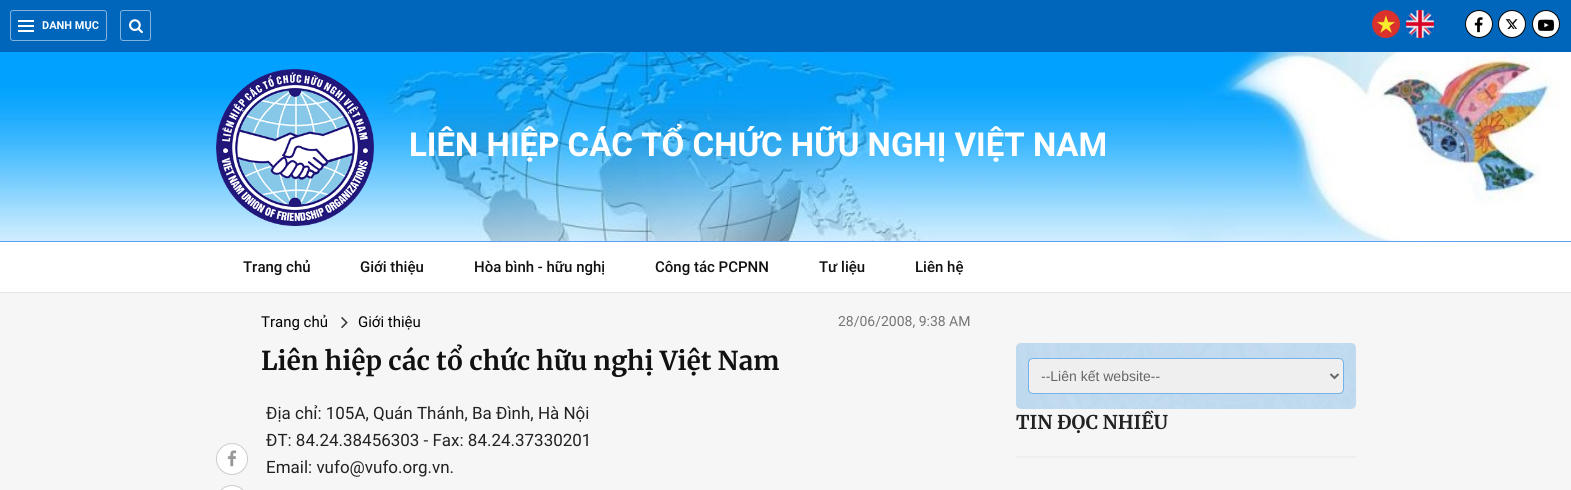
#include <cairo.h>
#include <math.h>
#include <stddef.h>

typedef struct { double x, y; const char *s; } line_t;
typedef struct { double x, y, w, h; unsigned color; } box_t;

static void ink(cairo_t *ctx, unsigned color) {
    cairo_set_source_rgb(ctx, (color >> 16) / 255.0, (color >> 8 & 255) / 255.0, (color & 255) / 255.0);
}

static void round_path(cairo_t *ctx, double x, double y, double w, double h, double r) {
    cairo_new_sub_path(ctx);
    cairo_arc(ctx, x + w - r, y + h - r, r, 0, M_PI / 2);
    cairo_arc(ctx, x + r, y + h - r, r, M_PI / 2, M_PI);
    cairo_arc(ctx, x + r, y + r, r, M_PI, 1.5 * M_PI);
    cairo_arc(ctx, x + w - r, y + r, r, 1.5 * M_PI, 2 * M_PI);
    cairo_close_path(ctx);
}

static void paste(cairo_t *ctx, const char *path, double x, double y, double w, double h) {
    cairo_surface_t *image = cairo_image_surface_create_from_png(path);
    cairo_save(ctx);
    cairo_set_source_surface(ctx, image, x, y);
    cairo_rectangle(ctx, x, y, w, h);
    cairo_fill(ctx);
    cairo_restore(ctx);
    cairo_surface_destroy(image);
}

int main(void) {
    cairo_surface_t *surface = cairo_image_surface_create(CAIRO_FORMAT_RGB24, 1571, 490);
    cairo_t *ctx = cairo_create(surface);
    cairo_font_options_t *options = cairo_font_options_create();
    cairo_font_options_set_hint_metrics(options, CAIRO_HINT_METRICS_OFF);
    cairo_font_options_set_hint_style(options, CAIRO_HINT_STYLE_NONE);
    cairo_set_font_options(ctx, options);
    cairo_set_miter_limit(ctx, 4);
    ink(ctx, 0xFFFFFF);
    cairo_paint(ctx);
    ink(ctx, 0x0066BC);
    cairo_rectangle(ctx, 0, 0, 1571, 52);
    cairo_fill(ctx);
    round_path(ctx, 10.5, 10.5, 96, 30, 2.5);
    ink(ctx, 0x80B3DE);
    cairo_set_line_width(ctx, 1);
    cairo_stroke(ctx);
    {
        static const box_t items[] = {
            {18, 20, 16, 2, 0xFFFFFF},
            {18, 25, 16, 2, 0xFFFFFF},
            {18, 30, 16, 2, 0xFFFFFF},
        };
        for (size_t i = 0; i < sizeof items / sizeof *items; i++) {
            ink(ctx, items[i].color);
            cairo_rectangle(ctx, items[i].x, items[i].y, items[i].w, items[i].h);
            cairo_fill(ctx);
        }
    }
    cairo_select_font_face(ctx, "Roboto", CAIRO_FONT_SLANT_NORMAL, CAIRO_FONT_WEIGHT_BOLD);
    cairo_set_font_size(ctx, 11);
    cairo_move_to(ctx, 42, 29);
    cairo_show_text(ctx, "DANH MỤC");
    round_path(ctx, 120.5, 10.5, 30, 30, 2.5);
    ink(ctx, 0x80B3DE);
    cairo_stroke(ctx);
    paste(ctx, "media/1.png", 129, 19, 14, 15);
    paste(ctx, "media/2.png", 1372, 10, 28, 28);
    paste(ctx, "media/3.png", 1406, 10, 28, 28);
    ink(ctx, 0xFFFFFF);
    cairo_arc(ctx, 1479, 24, 13.5, 0, 2 * M_PI);
    cairo_fill_preserve(ctx);
    ink(ctx, 0x000000);
    cairo_stroke(ctx);
    paste(ctx, "media/4.png", 1474, 17, 9, 16);
    ink(ctx, 0xFFFFFF);
    cairo_arc(ctx, 1512, 24, 13.5, 0, 2 * M_PI);
    cairo_fill_preserve(ctx);
    ink(ctx, 0x000000);
    cairo_stroke(ctx);
    paste(ctx, "media/5.png", 1505, 19, 13, 10);
    ink(ctx, 0xFFFFFF);
    cairo_arc(ctx, 1546, 24, 13.5, 0, 2 * M_PI);
    cairo_fill_preserve(ctx);
    ink(ctx, 0x000000);
    cairo_stroke(ctx);
    paste(ctx, "media/6.png", 1538, 19, 16, 12);
    paste(ctx, "media/7.png", 0, 52, 1571, 189);
    ink(ctx, 0x5BA0F5);
    cairo_rectangle(ctx, 0, 241, 1571, 1);
    cairo_fill(ctx);
    paste(ctx, "media/8.png", 216, 69, 158, 157);
    cairo_set_font_size(ctx, 33);
    ink(ctx, 0xFFFFFF);
    cairo_move_to(ctx, 409, 156);
    cairo_show_text(ctx, "LIÊN HIỆP CÁC TỔ CHỨC HỮU NGHỊ VIỆT NAM");
    ink(ctx, 0xE5E5E5);
    cairo_rectangle(ctx, 0, 292, 1571, 1);
    cairo_fill(ctx);
    cairo_select_font_face(ctx, "Roboto Medium", CAIRO_FONT_SLANT_NORMAL, CAIRO_FONT_WEIGHT_NORMAL);
    cairo_set_font_size(ctx, 15);
    ink(ctx, 0x111111);
    {
        static const line_t items[] = {
            {243, 272, "Trang chủ"},
            {360, 272, "Giới thiệu"},
            {474, 272, "Hòa bình - hữu nghị"},
            {655, 272, "Công tác PCPNN"},
            {819, 272, "Tư liệu"},
            {915, 272, "Liên hệ"},
        };
        for (size_t i = 0; i < sizeof items / sizeof *items; i++) {
            cairo_move_to(ctx, items[i].x, items[i].y);
            cairo_show_text(ctx, items[i].s);
        }
    }
    ink(ctx, 0xF6F6F6);
    cairo_rectangle(ctx, 0, 293, 1571, 197);
    cairo_fill(ctx);
    cairo_select_font_face(ctx, "Roboto", CAIRO_FONT_SLANT_NORMAL, CAIRO_FONT_WEIGHT_NORMAL);
    ink(ctx, 0x000000);
    cairo_move_to(ctx, 261, 327);
    cairo_show_text(ctx, "Trang chủ");
    paste(ctx, "media/9.png", 341, 317, 7, 12);
    cairo_move_to(ctx, 358, 327);
    cairo_show_text(ctx, "Giới thiệu");
    cairo_set_font_size(ctx, 14);
    ink(ctx, 0x757575);
    cairo_move_to(ctx, 838, 326);
    cairo_show_text(ctx, "28/06/2008, 9:38 AM");
    cairo_select_font_face(ctx, "Merriweather", CAIRO_FONT_SLANT_NORMAL, CAIRO_FONT_WEIGHT_BOLD);
    cairo_set_font_size(ctx, 26);
    ink(ctx, 0x111111);
    cairo_move_to(ctx, 261, 370);
    cairo_show_text(ctx, "Liên hiệp các tổ chức hữu nghị Việt Nam");
    cairo_select_font_face(ctx, "Roboto", CAIRO_FONT_SLANT_NORMAL, CAIRO_FONT_WEIGHT_NORMAL);
    cairo_set_font_size(ctx, 17);
    ink(ctx, 0x222222);
    {
        static const line_t items[] = {
            {266, 419, "Địa chỉ: 105A, Quán Thánh, Ba Đình, Hà Nội"},
            {266, 446, "ĐT: 84.24.38456303 - Fax: 84.24.37330201"},
            {266, 473, "Email: vufo@vufo.org.vn."},
        };
        for (size_t i = 0; i < sizeof items / sizeof *items; i++) {
            cairo_move_to(ctx, items[i].x, items[i].y);
            cairo_show_text(ctx, items[i].s);
        }
    }
    ink(ctx, 0xBED8EE);
    round_path(ctx, 1016, 343, 340, 66, 5);
    cairo_fill(ctx);
    paste(ctx, "media/10.png", 1018, 343, 338, 66);
    ink(ctx, 0xEFEFEF);
    round_path(ctx, 1028.5, 358.5, 315, 35, 4.5);
    cairo_fill_preserve(ctx);
    ink(ctx, 0x74B2E9);
    cairo_stroke(ctx);
    cairo_new_path(ctx);
    cairo_move_to(ctx, 1330.5, 374);
    cairo_line_to(ctx, 1334.5, 378);
    cairo_line_to(ctx, 1338.5, 374);
    ink(ctx, 0x666666);
    cairo_set_line_width(ctx, 2);
    cairo_stroke(ctx);
    cairo_select_font_face(ctx, "Liberation Sans", CAIRO_FONT_SLANT_NORMAL, CAIRO_FONT_WEIGHT_NORMAL);
    cairo_set_font_size(ctx, 14);
    cairo_move_to(ctx, 1041, 381);
    cairo_show_text(ctx, "--Liên kết website--");
    cairo_select_font_face(ctx, "Merriweather", CAIRO_FONT_SLANT_NORMAL, CAIRO_FONT_WEIGHT_BOLD);
    cairo_set_font_size(ctx, 19);
    ink(ctx, 0x222222);
    cairo_move_to(ctx, 1016, 429);
    cairo_show_text(ctx, "TIN ĐỌC NHIỀU");
    ink(ctx, 0xEEEEEE);
    cairo_rectangle(ctx, 1016, 456, 340, 2);
    cairo_fill(ctx);
    ink(ctx, 0xFFFFFF);
    cairo_arc(ctx, 232, 459, 15.5, 0, 2 * M_PI);
    cairo_fill_preserve(ctx);
    ink(ctx, 0xCCCCCC);
    cairo_set_line_width(ctx, 1);
    cairo_stroke(ctx);
    paste(ctx, "media/11.png", 227, 450, 10, 17);
    ink(ctx, 0xFFFFFF);
    round_path(ctx, 216.5, 485.5, 31, 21, 15.5);
    cairo_fill_preserve(ctx);
    ink(ctx, 0xCCCCCC);
    cairo_stroke(ctx);
    cairo_surface_write_to_png(surface, "image.png");
    cairo_font_options_destroy(options);
    cairo_destroy(ctx);
    cairo_surface_destroy(surface);
    return 0;
}
